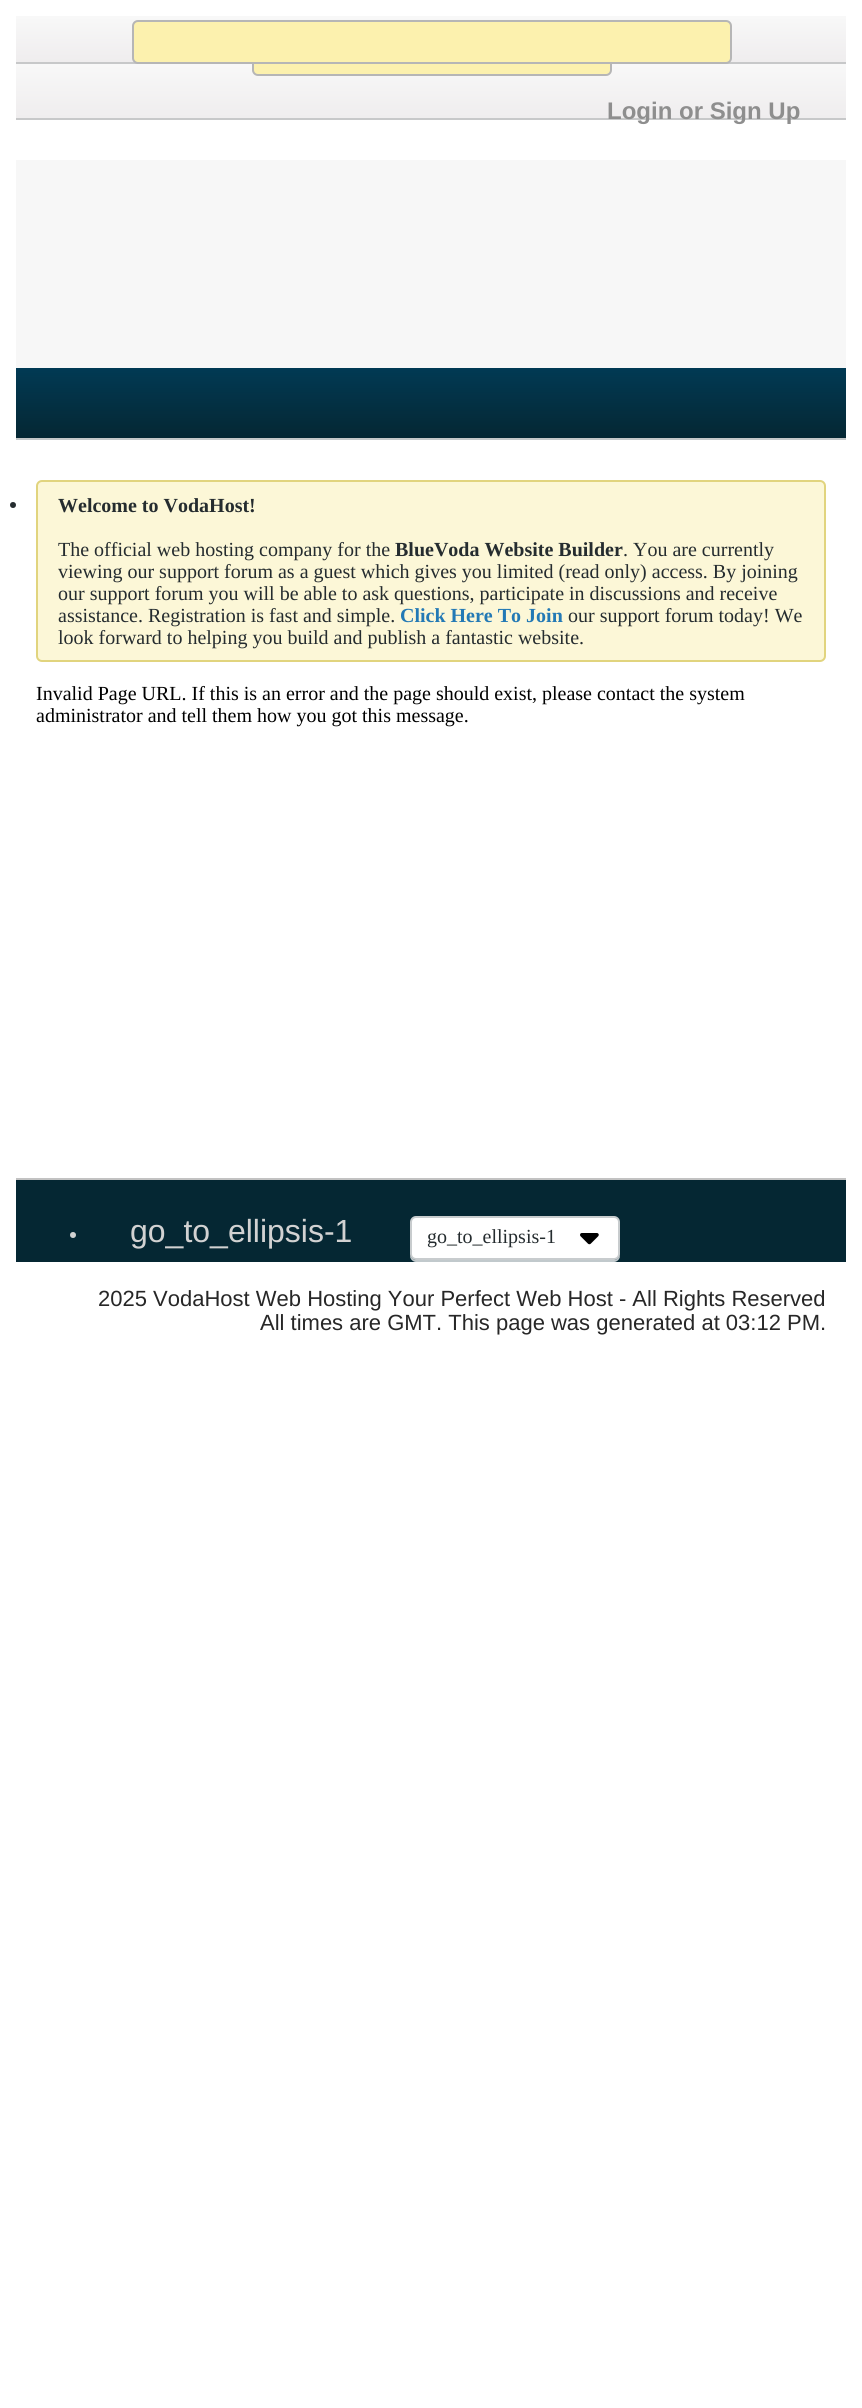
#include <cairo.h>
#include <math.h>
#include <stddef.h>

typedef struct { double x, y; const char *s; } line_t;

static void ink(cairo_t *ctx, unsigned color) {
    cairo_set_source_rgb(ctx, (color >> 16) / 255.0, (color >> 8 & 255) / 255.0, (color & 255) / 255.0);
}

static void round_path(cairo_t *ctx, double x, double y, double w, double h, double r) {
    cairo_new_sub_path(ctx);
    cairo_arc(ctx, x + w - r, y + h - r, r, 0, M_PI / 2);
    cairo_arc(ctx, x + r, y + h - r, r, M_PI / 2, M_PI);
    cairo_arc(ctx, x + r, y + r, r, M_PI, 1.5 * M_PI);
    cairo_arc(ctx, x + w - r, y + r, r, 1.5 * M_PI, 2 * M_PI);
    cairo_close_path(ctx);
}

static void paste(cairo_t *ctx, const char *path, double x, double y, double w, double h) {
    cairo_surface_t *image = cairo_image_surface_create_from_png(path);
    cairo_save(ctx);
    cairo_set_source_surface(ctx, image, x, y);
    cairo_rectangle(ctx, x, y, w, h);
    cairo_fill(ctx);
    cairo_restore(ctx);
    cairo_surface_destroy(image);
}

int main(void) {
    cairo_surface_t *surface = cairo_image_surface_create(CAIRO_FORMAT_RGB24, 862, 2408);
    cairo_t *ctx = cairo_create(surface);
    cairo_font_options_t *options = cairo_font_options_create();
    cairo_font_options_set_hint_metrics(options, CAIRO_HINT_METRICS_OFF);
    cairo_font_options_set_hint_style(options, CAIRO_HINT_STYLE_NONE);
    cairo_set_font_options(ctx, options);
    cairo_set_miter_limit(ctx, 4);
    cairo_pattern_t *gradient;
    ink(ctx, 0xFFFFFF);
    cairo_paint(ctx);
    gradient = cairo_pattern_create_linear(431, 16, 431, 62);
    cairo_pattern_add_color_stop_rgba(gradient, 0, 0.973, 0.973, 0.973, 1);
    cairo_pattern_add_color_stop_rgba(gradient, 1, 0.937, 0.929, 0.933, 1);
    cairo_set_source(ctx, gradient);
    cairo_pattern_destroy(gradient);
    cairo_rectangle(ctx, 16, 16, 830, 46);
    cairo_fill(ctx);
    ink(ctx, 0xC7C8C9);
    cairo_rectangle(ctx, 16, 62, 830, 2);
    cairo_fill(ctx);
    gradient = cairo_pattern_create_linear(431, 64, 431, 118);
    cairo_pattern_add_color_stop_rgba(gradient, 0, 0.973, 0.973, 0.973, 1);
    cairo_pattern_add_color_stop_rgba(gradient, 1, 0.937, 0.929, 0.933, 1);
    cairo_set_source(ctx, gradient);
    cairo_pattern_destroy(gradient);
    cairo_rectangle(ctx, 16, 64, 830, 54);
    cairo_fill(ctx);
    ink(ctx, 0xFCF1AE);
    round_path(ctx, 253, 21, 358, 54, 5);
    cairo_fill_preserve(ctx);
    ink(ctx, 0xB6B6B6);
    cairo_stroke(ctx);
    ink(ctx, 0xFCF1AE);
    round_path(ctx, 133, 21, 598, 42, 5);
    cairo_fill_preserve(ctx);
    ink(ctx, 0xB6B6B6);
    cairo_stroke(ctx);
    ink(ctx, 0xC7C8C9);
    cairo_rectangle(ctx, 16, 118, 830, 2);
    cairo_fill(ctx);
    cairo_select_font_face(ctx, "Liberation Sans", CAIRO_FONT_SLANT_NORMAL, CAIRO_FONT_WEIGHT_BOLD);
    cairo_set_font_size(ctx, 24);
    ink(ctx, 0x8E8E8E);
    cairo_move_to(ctx, 607, 119);
    cairo_show_text(ctx, "Login or Sign Up");
    ink(ctx, 0xF7F7F7);
    cairo_rectangle(ctx, 16, 160, 830, 208);
    cairo_fill(ctx);
    gradient = cairo_pattern_create_linear(431, 368, 431, 438);
    cairo_pattern_add_color_stop_rgba(gradient, 0, 0.004, 0.227, 0.329, 1);
    cairo_pattern_add_color_stop_rgba(gradient, 1, 0.02, 0.153, 0.2, 1);
    cairo_set_source(ctx, gradient);
    cairo_pattern_destroy(gradient);
    cairo_rectangle(ctx, 16, 368, 830, 70);
    cairo_fill(ctx);
    ink(ctx, 0xC4C7C8);
    cairo_rectangle(ctx, 16, 438, 830, 2);
    cairo_fill(ctx);
    ink(ctx, 0xFCF7D7);
    round_path(ctx, 37, 481, 788, 180, 5);
    cairo_fill_preserve(ctx);
    ink(ctx, 0xE1D47E);
    cairo_stroke(ctx);
    ink(ctx, 0x252C2F);
    cairo_arc(ctx, 13, 505, 3, 0, 2 * M_PI);
    cairo_fill(ctx);
    cairo_select_font_face(ctx, "Liberation Serif", CAIRO_FONT_SLANT_NORMAL, CAIRO_FONT_WEIGHT_BOLD);
    cairo_set_font_size(ctx, 20);
    cairo_move_to(ctx, 58, 512);
    cairo_show_text(ctx, "Welcome to VodaHost!");
    cairo_select_font_face(ctx, "Liberation Serif", CAIRO_FONT_SLANT_NORMAL, CAIRO_FONT_WEIGHT_NORMAL);
    cairo_move_to(ctx, 58, 556);
    cairo_show_text(ctx, "The official web hosting company for the");
    cairo_select_font_face(ctx, "Liberation Serif", CAIRO_FONT_SLANT_NORMAL, CAIRO_FONT_WEIGHT_BOLD);
    cairo_move_to(ctx, 395, 556);
    cairo_show_text(ctx, "BlueVoda Website Builder");
    cairo_select_font_face(ctx, "Liberation Serif", CAIRO_FONT_SLANT_NORMAL, CAIRO_FONT_WEIGHT_NORMAL);
    {
        static const line_t items[] = {
            {623, 556, ". You are currently"},
            {58, 578, "viewing our support forum as a guest which gives you limited (read only) access. By joining"},
            {58, 600, "our support forum you will be able to ask questions, participate in discussions and receive"},
            {58, 622, "assistance. Registration is fast and simple."},
        };
        for (size_t i = 0; i < sizeof items / sizeof *items; i++) {
            cairo_move_to(ctx, items[i].x, items[i].y);
            cairo_show_text(ctx, items[i].s);
        }
    }
    cairo_select_font_face(ctx, "Liberation Serif", CAIRO_FONT_SLANT_NORMAL, CAIRO_FONT_WEIGHT_BOLD);
    ink(ctx, 0x2379B5);
    cairo_move_to(ctx, 400, 622);
    cairo_show_text(ctx, "Click Here To Join");
    cairo_select_font_face(ctx, "Liberation Serif", CAIRO_FONT_SLANT_NORMAL, CAIRO_FONT_WEIGHT_NORMAL);
    ink(ctx, 0x252C2F);
    cairo_move_to(ctx, 568, 622);
    cairo_show_text(ctx, "our support forum today! We");
    cairo_move_to(ctx, 58, 644);
    cairo_show_text(ctx, "look forward to helping you build and publish a fantastic website.");
    ink(ctx, 0x000000);
    cairo_move_to(ctx, 36, 700);
    cairo_show_text(ctx, "Invalid Page URL. If this is an error and the page should exist, please contact the system");
    cairo_move_to(ctx, 36, 722);
    cairo_show_text(ctx, "administrator and tell them how you got this message.");
    ink(ctx, 0x052733);
    cairo_rectangle(ctx, 16, 1180, 830, 82);
    cairo_fill(ctx);
    ink(ctx, 0xC2C2C2);
    cairo_rectangle(ctx, 16, 1178, 830, 2);
    cairo_fill(ctx);
    ink(ctx, 0xD2D2D2);
    cairo_arc(ctx, 73, 1235, 3, 0, 2 * M_PI);
    cairo_fill(ctx);
    cairo_select_font_face(ctx, "Liberation Sans", CAIRO_FONT_SLANT_NORMAL, CAIRO_FONT_WEIGHT_NORMAL);
    cairo_set_font_size(ctx, 32);
    cairo_move_to(ctx, 130, 1242);
    cairo_show_text(ctx, "go_to_ellipsis-1");
    ink(ctx, 0xC1C9CC);
    cairo_new_path(ctx);
    cairo_move_to(ctx, 410, 1254);
    cairo_line_to(ctx, 410, 1256);
    cairo_curve_to(ctx, 410, 1259, 413, 1262, 416, 1262);
    cairo_line_to(ctx, 614, 1262);
    cairo_curve_to(ctx, 617, 1262, 620, 1259, 620, 1256);
    cairo_line_to(ctx, 620, 1254);
    cairo_curve_to(ctx, 620, 1257, 617, 1260, 614, 1260);
    cairo_line_to(ctx, 416, 1260);
    cairo_curve_to(ctx, 413, 1260, 410, 1257, 410, 1254);
    cairo_close_path(ctx);
    cairo_fill(ctx);
    ink(ctx, 0xFFFFFF);
    round_path(ctx, 411, 1217, 208, 42, 5);
    cairo_fill_preserve(ctx);
    ink(ctx, 0xC8CCCE);
    cairo_stroke(ctx);
    cairo_select_font_face(ctx, "Liberation Serif", CAIRO_FONT_SLANT_NORMAL, CAIRO_FONT_WEIGHT_NORMAL);
    cairo_set_font_size(ctx, 20);
    ink(ctx, 0x252C2F);
    cairo_move_to(ctx, 427, 1243);
    cairo_show_text(ctx, "go_to_ellipsis-1");
    paste(ctx, "media/1.png", 580, 1233, 19, 12);
    cairo_select_font_face(ctx, "Liberation Sans", CAIRO_FONT_SLANT_NORMAL, CAIRO_FONT_WEIGHT_NORMAL);
    cairo_set_font_size(ctx, 22);
    ink(ctx, 0x272727);
    cairo_move_to(ctx, 98, 1306);
    cairo_show_text(ctx, "2025 VodaHost Web Hosting Your Perfect Web Host - All Rights Reserved");
    cairo_move_to(ctx, 260, 1330);
    cairo_show_text(ctx, "All times are GMT. This page was generated at 03:12 PM.");
    cairo_surface_write_to_png(surface, "image.png");
    cairo_font_options_destroy(options);
    cairo_destroy(ctx);
    cairo_surface_destroy(surface);
    return 0;
}
